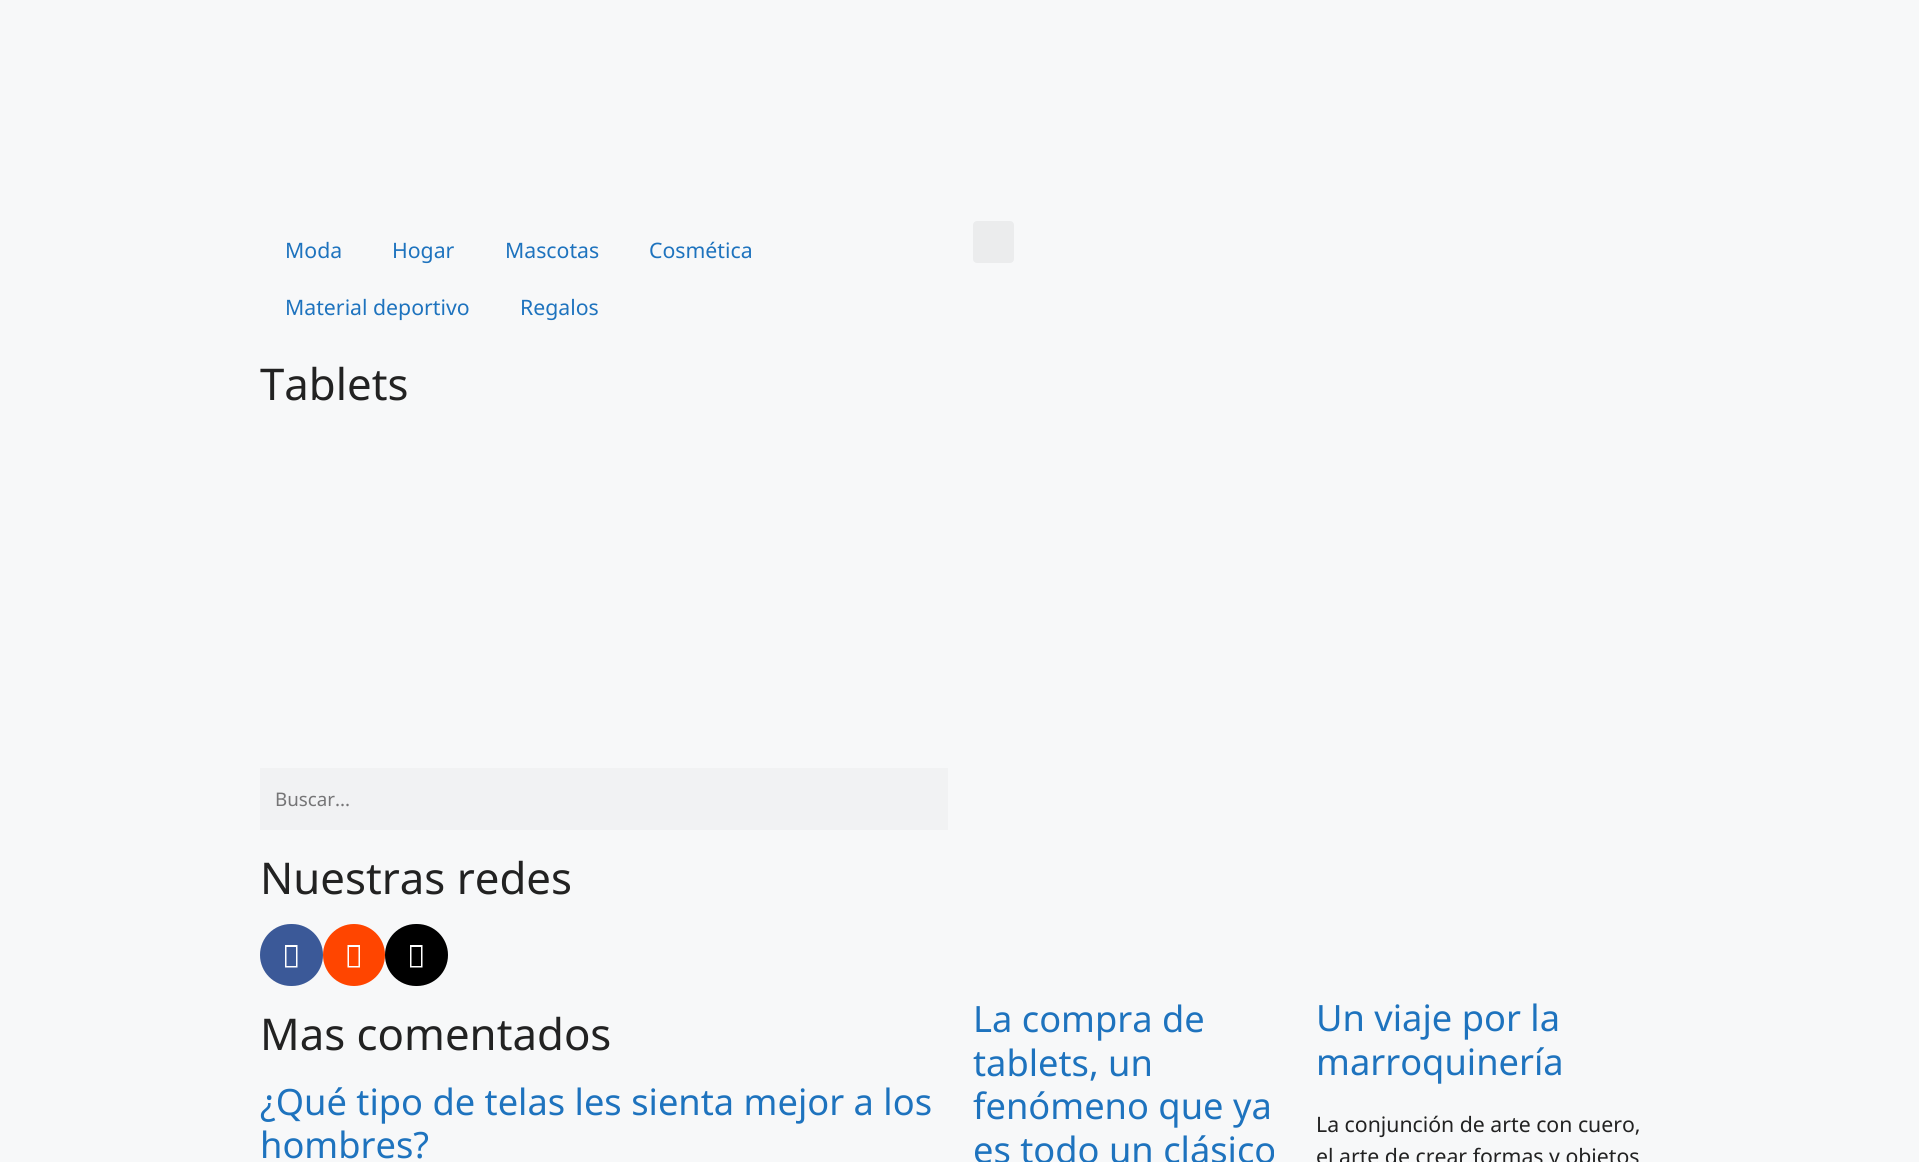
#include <cairo.h>
#include <math.h>
#include <stddef.h>

typedef struct { double x, y; const char *s; } line_t;

static void ink(cairo_t *ctx, unsigned color) {
    cairo_set_source_rgb(ctx, (color >> 16) / 255.0, (color >> 8 & 255) / 255.0, (color & 255) / 255.0);
}

static void round_path(cairo_t *ctx, double x, double y, double w, double h, double r) {
    cairo_new_sub_path(ctx);
    cairo_arc(ctx, x + w - r, y + h - r, r, 0, M_PI / 2);
    cairo_arc(ctx, x + r, y + h - r, r, M_PI / 2, M_PI);
    cairo_arc(ctx, x + r, y + r, r, M_PI, 1.5 * M_PI);
    cairo_arc(ctx, x + w - r, y + r, r, 1.5 * M_PI, 2 * M_PI);
    cairo_close_path(ctx);
}

int main(void) {
    cairo_surface_t *surface = cairo_image_surface_create(CAIRO_FORMAT_RGB24, 1919, 1162);
    cairo_t *ctx = cairo_create(surface);
    cairo_font_options_t *options = cairo_font_options_create();
    cairo_font_options_set_hint_metrics(options, CAIRO_HINT_METRICS_OFF);
    cairo_font_options_set_hint_style(options, CAIRO_HINT_STYLE_NONE);
    cairo_set_font_options(ctx, options);
    cairo_set_miter_limit(ctx, 4);
    ink(ctx, 0xF7F8F9);
    cairo_paint(ctx);
    cairo_select_font_face(ctx, "Noto Sans", CAIRO_FONT_SLANT_NORMAL, CAIRO_FONT_WEIGHT_NORMAL);
    cairo_set_font_size(ctx, 21.25);
    ink(ctx, 0x1E73BE);
    {
        static const line_t items[] = {
            {285, 258, "Moda"},
            {392, 258, "Hogar"},
            {505, 258, "Mascotas"},
            {649, 258, "Cosmética"},
            {285, 315, "Material deportivo"},
            {520, 315, "Regalos"},
        };
        for (size_t i = 0; i < sizeof items / sizeof *items; i++) {
            cairo_move_to(ctx, items[i].x, items[i].y);
            cairo_show_text(ctx, items[i].s);
        }
    }
    ink(ctx, 0xEBECED);
    round_path(ctx, 973, 221, 41, 42, 4);
    cairo_fill(ctx);
    cairo_set_font_size(ctx, 43.75);
    ink(ctx, 0x222222);
    cairo_move_to(ctx, 260, 400);
    cairo_show_text(ctx, "Tablets");
    ink(ctx, 0xF1F2F3);
    cairo_rectangle(ctx, 260, 768, 688, 62);
    cairo_fill(ctx);
    cairo_set_font_size(ctx, 18.75);
    ink(ctx, 0x757576);
    cairo_move_to(ctx, 275, 806);
    cairo_show_text(ctx, "Buscar...");
    cairo_set_font_size(ctx, 43.75);
    ink(ctx, 0x222222);
    cairo_move_to(ctx, 260, 894);
    cairo_show_text(ctx, "Nuestras redes");
    ink(ctx, 0x3B5998);
    round_path(ctx, 260, 924, 63, 62, 31);
    cairo_fill(ctx);
    ink(ctx, 0xFFFFFF);
    cairo_new_path(ctx);
    cairo_move_to(ctx, 285, 967.5);
    cairo_line_to(ctx, 285, 945);
    cairo_line_to(ctx, 297.5, 945);
    cairo_line_to(ctx, 297.5, 967.5);
    cairo_close_path(ctx);
    cairo_move_to(ctx, 286.5, 966);
    cairo_line_to(ctx, 296, 966);
    cairo_line_to(ctx, 296, 947);
    cairo_line_to(ctx, 286.5, 947);
    cairo_close_path(ctx);
    cairo_fill(ctx);
    ink(ctx, 0xFF4500);
    cairo_arc(ctx, 354, 955, 31, 0, 2 * M_PI);
    cairo_fill(ctx);
    ink(ctx, 0xFFFFFF);
    cairo_new_path(ctx);
    cairo_move_to(ctx, 347.5, 967.5);
    cairo_line_to(ctx, 347.5, 945);
    cairo_line_to(ctx, 360, 945);
    cairo_line_to(ctx, 360, 967.5);
    cairo_close_path(ctx);
    cairo_move_to(ctx, 349, 966);
    cairo_line_to(ctx, 358.5, 966);
    cairo_line_to(ctx, 358.5, 947);
    cairo_line_to(ctx, 349, 947);
    cairo_close_path(ctx);
    cairo_fill(ctx);
    ink(ctx, 0x000000);
    round_path(ctx, 385, 924, 63, 62, 31);
    cairo_fill(ctx);
    ink(ctx, 0xFFFFFF);
    cairo_new_path(ctx);
    cairo_move_to(ctx, 410, 967.5);
    cairo_line_to(ctx, 410, 945);
    cairo_line_to(ctx, 422.5, 945);
    cairo_line_to(ctx, 422.5, 967.5);
    cairo_close_path(ctx);
    cairo_move_to(ctx, 411.5, 966);
    cairo_line_to(ctx, 421, 966);
    cairo_line_to(ctx, 421, 947);
    cairo_line_to(ctx, 411.5, 947);
    cairo_close_path(ctx);
    cairo_fill(ctx);
    ink(ctx, 0x222222);
    cairo_move_to(ctx, 260, 1050);
    cairo_show_text(ctx, "Mas comentados");
    cairo_set_font_size(ctx, 36.25);
    ink(ctx, 0x1E73BE);
    {
        static const line_t items[] = {
            {260, 1115, "¿Qué tipo de telas les sienta mejor a los"},
            {260, 1158, "hombres?"},
            {973, 1032, "La compra de"},
            {973, 1076, "tablets, un"},
            {973, 1119, "fenómeno que ya"},
            {973, 1163, "es todo un clásico"},
            {1316, 1031, "Un viaje por la"},
            {1316, 1075, "marroquinería"},
        };
        for (size_t i = 0; i < sizeof items / sizeof *items; i++) {
            cairo_move_to(ctx, items[i].x, items[i].y);
            cairo_show_text(ctx, items[i].s);
        }
    }
    cairo_set_font_size(ctx, 21.25);
    ink(ctx, 0x222222);
    cairo_move_to(ctx, 1316, 1132);
    cairo_show_text(ctx, "La conjunción de arte con cuero,");
    cairo_move_to(ctx, 1316, 1164);
    cairo_show_text(ctx, "el arte de crear formas y objetos");
    cairo_surface_write_to_png(surface, "image.png");
    cairo_font_options_destroy(options);
    cairo_destroy(ctx);
    cairo_surface_destroy(surface);
    return 0;
}
